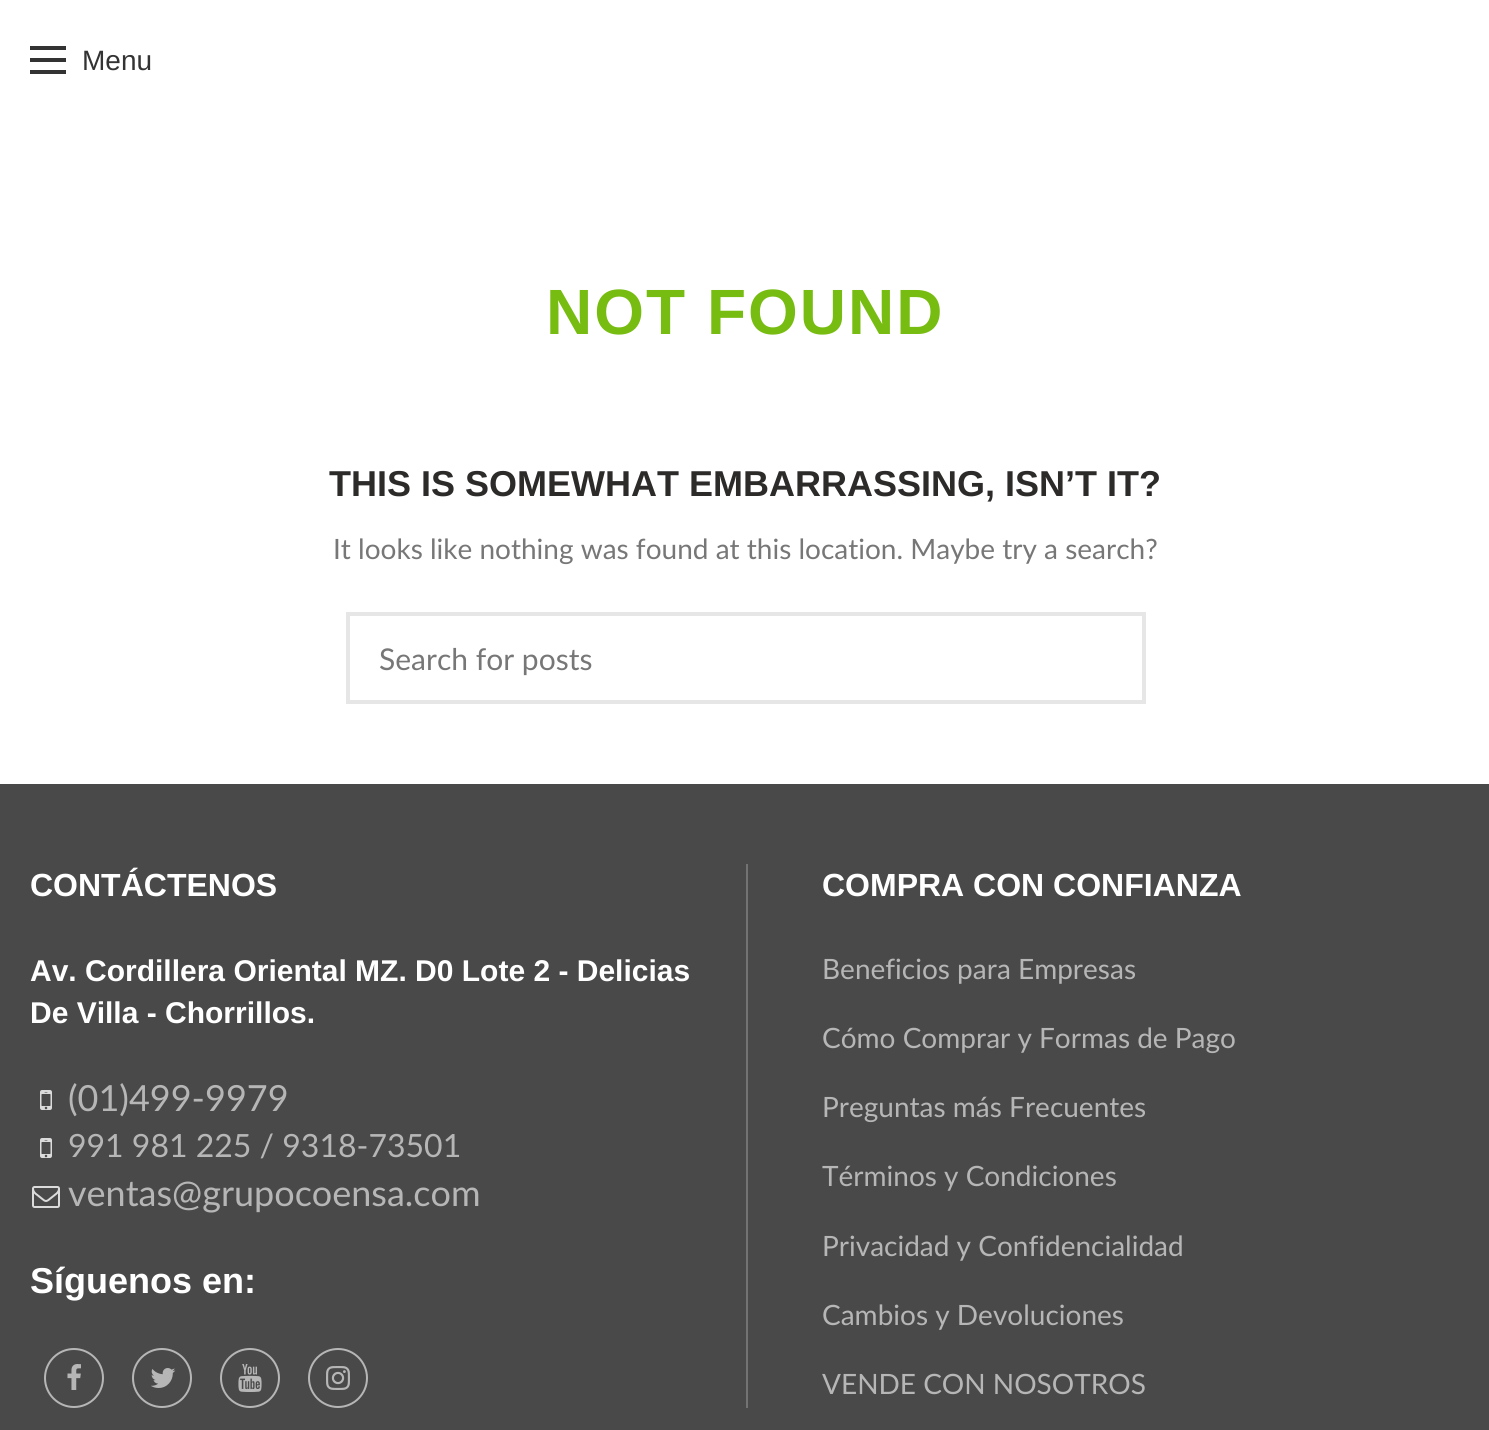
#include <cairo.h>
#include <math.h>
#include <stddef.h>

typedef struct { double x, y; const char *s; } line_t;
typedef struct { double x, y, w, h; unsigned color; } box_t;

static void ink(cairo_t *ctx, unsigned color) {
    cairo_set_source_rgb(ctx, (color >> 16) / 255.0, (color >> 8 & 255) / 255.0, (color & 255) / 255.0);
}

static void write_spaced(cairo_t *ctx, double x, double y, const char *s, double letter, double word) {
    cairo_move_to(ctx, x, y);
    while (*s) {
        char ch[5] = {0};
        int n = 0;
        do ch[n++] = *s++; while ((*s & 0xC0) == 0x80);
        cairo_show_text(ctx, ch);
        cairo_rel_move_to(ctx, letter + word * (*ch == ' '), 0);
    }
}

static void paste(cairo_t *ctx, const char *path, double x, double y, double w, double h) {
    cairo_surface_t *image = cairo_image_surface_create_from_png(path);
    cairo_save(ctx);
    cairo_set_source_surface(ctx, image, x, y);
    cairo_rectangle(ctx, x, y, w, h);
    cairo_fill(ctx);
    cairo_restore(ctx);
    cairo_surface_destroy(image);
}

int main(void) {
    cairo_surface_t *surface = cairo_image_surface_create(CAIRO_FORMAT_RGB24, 1489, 1430);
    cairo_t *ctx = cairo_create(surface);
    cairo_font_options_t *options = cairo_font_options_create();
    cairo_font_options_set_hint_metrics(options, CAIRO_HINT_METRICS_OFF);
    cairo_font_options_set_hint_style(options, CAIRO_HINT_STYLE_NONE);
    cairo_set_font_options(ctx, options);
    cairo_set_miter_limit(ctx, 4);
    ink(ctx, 0xFFFFFF);
    cairo_paint(ctx);
    {
        static const box_t items[] = {
            {30, 58, 36, 4, 0x333333},
            {30, 46, 36, 4, 0x333333},
            {30, 70, 36, 4, 0x333333},
        };
        for (size_t i = 0; i < sizeof items / sizeof *items; i++) {
            ink(ctx, items[i].color);
            cairo_rectangle(ctx, items[i].x, items[i].y, items[i].w, items[i].h);
            cairo_fill(ctx);
        }
    }
    cairo_select_font_face(ctx, "Liberation Sans", CAIRO_FONT_SLANT_NORMAL, CAIRO_FONT_WEIGHT_NORMAL);
    cairo_set_font_size(ctx, 28);
    cairo_move_to(ctx, 82, 70);
    cairo_show_text(ctx, "Menu");
    cairo_select_font_face(ctx, "Liberation Sans", CAIRO_FONT_SLANT_NORMAL, CAIRO_FONT_WEIGHT_BOLD);
    cairo_set_font_size(ctx, 64);
    ink(ctx, 0x77BC11);
    write_spaced(ctx, 546, 334, "NOT FOUND", 2, 0);
    cairo_set_font_size(ctx, 36);
    ink(ctx, 0x2D2A2A);
    cairo_move_to(ctx, 329, 496);
    cairo_show_text(ctx, "THIS IS SOMEWHAT EMBARRASSING, ISN’T IT?");
    cairo_select_font_face(ctx, "Lato", CAIRO_FONT_SLANT_NORMAL, CAIRO_FONT_WEIGHT_NORMAL);
    cairo_set_font_size(ctx, 28);
    ink(ctx, 0x777777);
    cairo_move_to(ctx, 333, 559);
    cairo_show_text(ctx, "It looks like nothing was found at this location. Maybe try a search?");
    cairo_rectangle(ctx, 348, 614, 796, 88);
    ink(ctx, 0xE6E6E6);
    cairo_set_line_width(ctx, 4);
    cairo_stroke(ctx);
    cairo_set_font_size(ctx, 30);
    ink(ctx, 0x777777);
    cairo_move_to(ctx, 379, 670);
    cairo_show_text(ctx, "Search for posts");
    ink(ctx, 0x494949);
    cairo_rectangle(ctx, 0, 784, 1489, 646);
    cairo_fill(ctx);
    cairo_select_font_face(ctx, "Liberation Sans", CAIRO_FONT_SLANT_NORMAL, CAIRO_FONT_WEIGHT_BOLD);
    cairo_set_font_size(ctx, 32);
    ink(ctx, 0xFFFFFF);
    cairo_move_to(ctx, 30, 896);
    cairo_show_text(ctx, "CONTÁCTENOS");
    cairo_set_font_size(ctx, 30);
    cairo_move_to(ctx, 30, 981);
    cairo_show_text(ctx, "Av. Cordillera Oriental MZ. D0 Lote 2 - Delicias");
    cairo_move_to(ctx, 30, 1023);
    cairo_show_text(ctx, "De Villa - Chorrillos.");
    paste(ctx, "media/1.png", 40, 1090, 12, 20);
    cairo_select_font_face(ctx, "Lato", CAIRO_FONT_SLANT_NORMAL, CAIRO_FONT_WEIGHT_NORMAL);
    cairo_set_font_size(ctx, 36);
    ink(ctx, 0xB6B6B6);
    cairo_move_to(ctx, 68, 1111);
    cairo_show_text(ctx, "(01)499-9979");
    paste(ctx, "media/1.png", 40, 1138, 12, 20);
    cairo_set_font_size(ctx, 32);
    cairo_move_to(ctx, 68, 1157);
    cairo_show_text(ctx, "991 981 225 / 9318-73501");
    paste(ctx, "media/2.png", 32, 1186, 28, 22);
    cairo_set_font_size(ctx, 36);
    cairo_move_to(ctx, 68, 1206);
    cairo_show_text(ctx, "ventas@grupocoensa.com");
    cairo_select_font_face(ctx, "Liberation Sans", CAIRO_FONT_SLANT_NORMAL, CAIRO_FONT_WEIGHT_BOLD);
    ink(ctx, 0xFFFFFF);
    cairo_move_to(ctx, 30, 1293);
    cairo_show_text(ctx, "Síguenos en:");
    cairo_new_path(ctx);
    cairo_arc(ctx, 74, 1378, 29, 0, 2 * M_PI);
    ink(ctx, 0xB6B6B6);
    cairo_set_line_width(ctx, 2);
    cairo_stroke(ctx);
    paste(ctx, "media/3.png", 67, 1364, 14, 26);
    cairo_arc(ctx, 162, 1378, 29, 0, 2 * M_PI);
    cairo_stroke(ctx);
    paste(ctx, "media/4.png", 151, 1368, 25, 20);
    cairo_arc(ctx, 250, 1378, 29, 0, 2 * M_PI);
    cairo_stroke(ctx);
    paste(ctx, "media/5.png", 238, 1364, 24, 28);
    cairo_arc(ctx, 338, 1378, 29, 0, 2 * M_PI);
    cairo_stroke(ctx);
    paste(ctx, "media/6.png", 326, 1366, 24, 24);
    ink(ctx, 0x737373);
    cairo_rectangle(ctx, 746, 864, 2, 544);
    cairo_fill(ctx);
    cairo_set_font_size(ctx, 32);
    ink(ctx, 0xFFFFFF);
    cairo_move_to(ctx, 822, 896);
    cairo_show_text(ctx, "COMPRA CON CONFIANZA");
    cairo_select_font_face(ctx, "Lato", CAIRO_FONT_SLANT_NORMAL, CAIRO_FONT_WEIGHT_NORMAL);
    cairo_set_font_size(ctx, 28);
    ink(ctx, 0xB6B6B6);
    {
        static const line_t items[] = {
            {822, 979, "Beneficios para Empresas"},
            {822, 1048, "Cómo Comprar y Formas de Pago"},
            {822, 1117, "Preguntas más Frecuentes"},
            {822, 1186, "Términos y Condiciones"},
            {822, 1256, "Privacidad y Confidencialidad"},
            {822, 1325, "Cambios y Devoluciones"},
            {822, 1394, "VENDE CON NOSOTROS"},
        };
        for (size_t i = 0; i < sizeof items / sizeof *items; i++) {
            cairo_move_to(ctx, items[i].x, items[i].y);
            cairo_show_text(ctx, items[i].s);
        }
    }
    cairo_surface_write_to_png(surface, "image.png");
    cairo_font_options_destroy(options);
    cairo_destroy(ctx);
    cairo_surface_destroy(surface);
    return 0;
}
